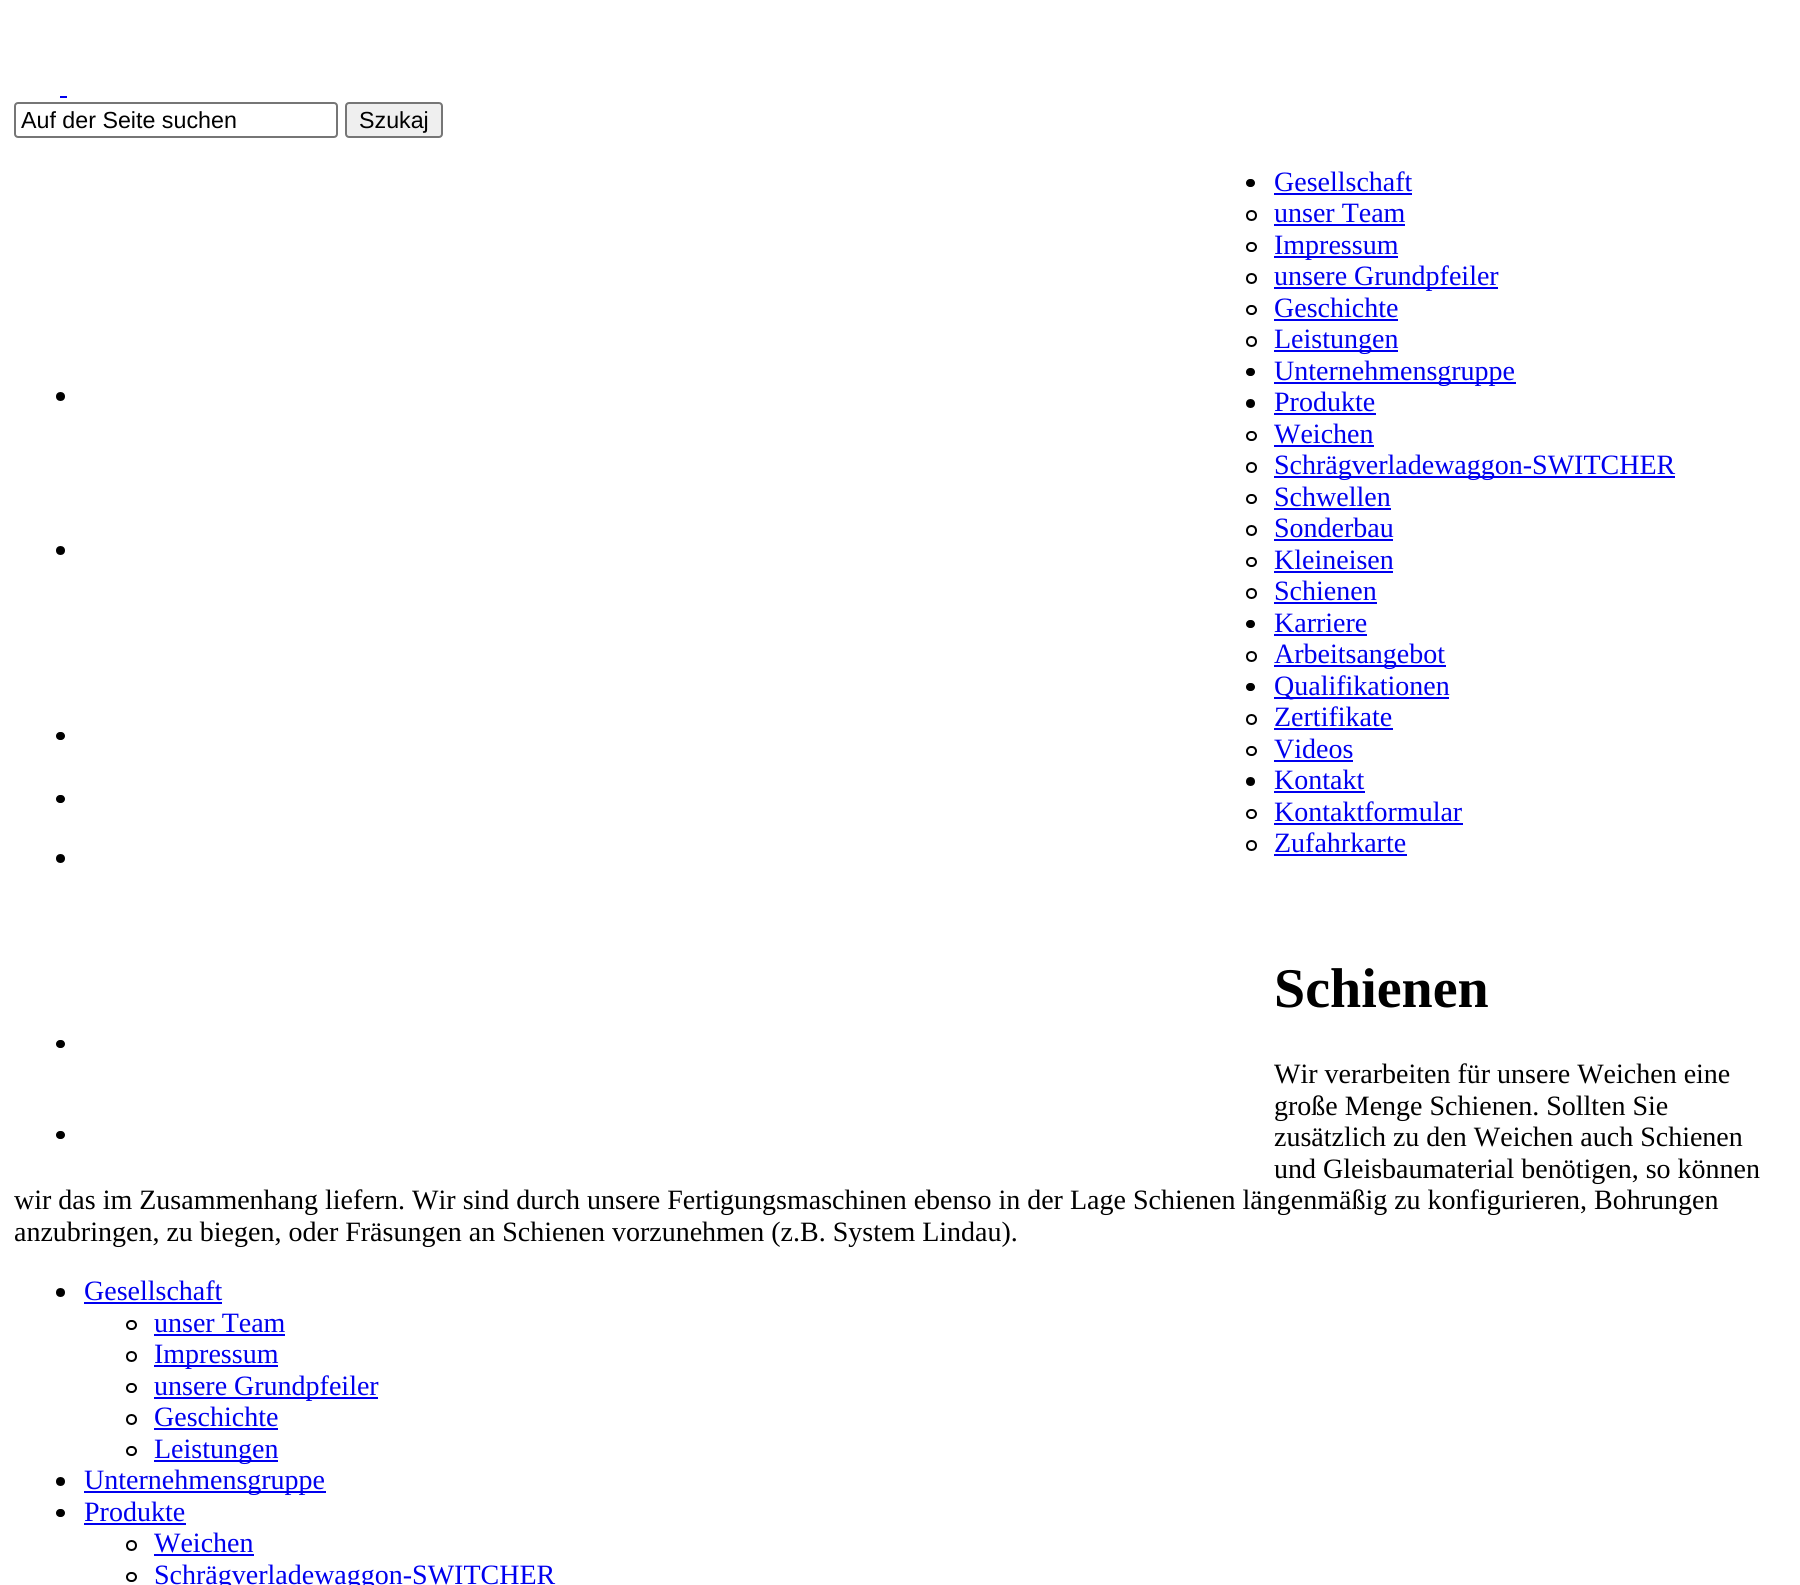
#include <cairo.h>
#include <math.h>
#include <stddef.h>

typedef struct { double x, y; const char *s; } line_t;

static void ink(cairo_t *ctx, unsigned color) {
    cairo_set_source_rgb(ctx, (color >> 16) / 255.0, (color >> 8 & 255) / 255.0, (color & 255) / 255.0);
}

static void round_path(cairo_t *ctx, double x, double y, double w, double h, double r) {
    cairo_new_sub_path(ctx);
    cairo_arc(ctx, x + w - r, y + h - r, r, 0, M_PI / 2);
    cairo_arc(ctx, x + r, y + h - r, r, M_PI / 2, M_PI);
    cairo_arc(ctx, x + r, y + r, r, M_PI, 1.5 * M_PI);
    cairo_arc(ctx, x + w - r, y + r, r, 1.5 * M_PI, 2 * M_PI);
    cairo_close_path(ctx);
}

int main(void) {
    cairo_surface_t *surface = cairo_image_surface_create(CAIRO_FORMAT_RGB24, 1800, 1585);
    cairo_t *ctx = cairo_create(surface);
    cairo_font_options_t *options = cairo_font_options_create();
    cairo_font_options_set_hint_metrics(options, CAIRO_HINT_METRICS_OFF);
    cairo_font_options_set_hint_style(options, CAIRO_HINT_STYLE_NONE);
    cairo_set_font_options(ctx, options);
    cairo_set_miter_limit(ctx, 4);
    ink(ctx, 0xFFFFFF);
    cairo_paint(ctx);
    ink(ctx, 0x0000EE);
    cairo_rectangle(ctx, 60, 96, 7, 2);
    cairo_fill(ctx);
    round_path(ctx, 15, 103, 322, 34, 3);
    ink(ctx, 0x767676);
    cairo_stroke(ctx);
    cairo_select_font_face(ctx, "Liberation Sans", CAIRO_FONT_SLANT_NORMAL, CAIRO_FONT_WEIGHT_NORMAL);
    cairo_set_font_size(ctx, 23.25);
    ink(ctx, 0x000000);
    cairo_move_to(ctx, 21, 128);
    cairo_show_text(ctx, "Auf der Seite suchen");
    ink(ctx, 0xEFEFEF);
    round_path(ctx, 346, 103, 96, 34, 3);
    cairo_fill_preserve(ctx);
    ink(ctx, 0x767676);
    cairo_stroke(ctx);
    ink(ctx, 0x000000);
    cairo_move_to(ctx, 359, 128);
    cairo_show_text(ctx, "Szukaj");
    cairo_new_path(ctx);
    cairo_arc(ctx, 60.5, 396.5, 4.5, 0, 2 * M_PI);
    cairo_fill(ctx);
    cairo_arc(ctx, 60.5, 550.5, 4.5, 0, 2 * M_PI);
    cairo_fill(ctx);
    round_path(ctx, 56, 732, 9, 8, 4);
    cairo_fill(ctx);
    round_path(ctx, 56, 795, 9, 8, 4);
    cairo_fill(ctx);
    cairo_arc(ctx, 60.5, 858.5, 4.5, 0, 2 * M_PI);
    cairo_fill(ctx);
    round_path(ctx, 56, 1040, 9, 8, 4);
    cairo_fill(ctx);
    round_path(ctx, 56, 1131, 9, 8, 4);
    cairo_fill(ctx);
    round_path(ctx, 1246, 179, 9, 8, 4);
    cairo_fill(ctx);
    cairo_select_font_face(ctx, "Liberation Serif", CAIRO_FONT_SLANT_NORMAL, CAIRO_FONT_WEIGHT_NORMAL);
    cairo_set_font_size(ctx, 28);
    ink(ctx, 0x0000EE);
    cairo_move_to(ctx, 1274, 191);
    cairo_show_text(ctx, "Gesellschaft");
    cairo_rectangle(ctx, 1274, 193, 138, 2);
    cairo_fill(ctx);
    cairo_arc(ctx, 1251.5, 215.5, 4.5, 0, 2 * M_PI);
    ink(ctx, 0x000000);
    cairo_stroke(ctx);
    ink(ctx, 0x0000EE);
    cairo_move_to(ctx, 1274, 222);
    cairo_show_text(ctx, "unser Team");
    cairo_rectangle(ctx, 1274, 224, 131, 2);
    cairo_fill(ctx);
    round_path(ctx, 1247, 243, 9, 8, 4);
    ink(ctx, 0x000000);
    cairo_stroke(ctx);
    ink(ctx, 0x0000EE);
    cairo_rectangle(ctx, 1274, 256, 124, 2);
    cairo_fill(ctx);
    cairo_move_to(ctx, 1274, 254);
    cairo_show_text(ctx, "Impressum");
    cairo_new_path(ctx);
    cairo_arc(ctx, 1251.5, 278.5, 4.5, 0, 2 * M_PI);
    ink(ctx, 0x000000);
    cairo_stroke(ctx);
    ink(ctx, 0x0000EE);
    cairo_rectangle(ctx, 1274, 287, 224, 2);
    cairo_fill(ctx);
    cairo_move_to(ctx, 1274, 285);
    cairo_show_text(ctx, "unsere Grundpfeiler");
    round_path(ctx, 1247, 306, 9, 8, 4);
    ink(ctx, 0x000000);
    cairo_stroke(ctx);
    ink(ctx, 0x0000EE);
    cairo_move_to(ctx, 1274, 317);
    cairo_show_text(ctx, "Geschichte");
    cairo_rectangle(ctx, 1274, 319, 124, 2);
    cairo_fill(ctx);
    cairo_arc(ctx, 1251.5, 341.5, 4.5, 0, 2 * M_PI);
    ink(ctx, 0x000000);
    cairo_stroke(ctx);
    ink(ctx, 0x0000EE);
    cairo_rectangle(ctx, 1274, 350, 124, 2);
    cairo_fill(ctx);
    cairo_move_to(ctx, 1274, 348);
    cairo_show_text(ctx, "Leistungen");
    ink(ctx, 0x000000);
    round_path(ctx, 1246, 368, 9, 8, 4);
    cairo_fill(ctx);
    ink(ctx, 0x0000EE);
    cairo_rectangle(ctx, 1274, 382, 242, 2);
    cairo_fill(ctx);
    cairo_move_to(ctx, 1274, 380);
    cairo_show_text(ctx, "Unternehmensgruppe");
    ink(ctx, 0x000000);
    cairo_new_path(ctx);
    cairo_arc(ctx, 1250.5, 403.5, 4.5, 0, 2 * M_PI);
    cairo_fill(ctx);
    ink(ctx, 0x0000EE);
    cairo_move_to(ctx, 1274, 411);
    cairo_show_text(ctx, "Produkte");
    cairo_rectangle(ctx, 1274, 413, 102, 2);
    cairo_fill(ctx);
    round_path(ctx, 1247, 432, 9, 8, 4);
    ink(ctx, 0x000000);
    cairo_stroke(ctx);
    ink(ctx, 0x0000EE);
    cairo_move_to(ctx, 1274, 443);
    cairo_show_text(ctx, "Weichen");
    cairo_rectangle(ctx, 1274, 445, 100, 2);
    cairo_fill(ctx);
    cairo_arc(ctx, 1251.5, 467.5, 4.5, 0, 2 * M_PI);
    ink(ctx, 0x000000);
    cairo_stroke(ctx);
    ink(ctx, 0x0000EE);
    cairo_rectangle(ctx, 1274, 476, 401, 2);
    cairo_fill(ctx);
    cairo_move_to(ctx, 1274, 474);
    cairo_show_text(ctx, "Schrägverladewaggon-SWITCHER");
    round_path(ctx, 1247, 495, 9, 8, 4);
    ink(ctx, 0x000000);
    cairo_stroke(ctx);
    ink(ctx, 0x0000EE);
    cairo_move_to(ctx, 1274, 506);
    cairo_show_text(ctx, "Schwellen");
    cairo_rectangle(ctx, 1274, 508, 117, 2);
    cairo_fill(ctx);
    cairo_arc(ctx, 1251.5, 530.5, 4.5, 0, 2 * M_PI);
    ink(ctx, 0x000000);
    cairo_stroke(ctx);
    ink(ctx, 0x0000EE);
    cairo_move_to(ctx, 1274, 537);
    cairo_show_text(ctx, "Sonderbau");
    cairo_rectangle(ctx, 1274, 539, 119, 2);
    cairo_fill(ctx);
    round_path(ctx, 1247, 558, 9, 8, 4);
    ink(ctx, 0x000000);
    cairo_stroke(ctx);
    ink(ctx, 0x0000EE);
    cairo_move_to(ctx, 1274, 569);
    cairo_show_text(ctx, "Kleineisen");
    cairo_rectangle(ctx, 1274, 571, 119, 2);
    cairo_fill(ctx);
    cairo_arc(ctx, 1251.5, 593.5, 4.5, 0, 2 * M_PI);
    ink(ctx, 0x000000);
    cairo_stroke(ctx);
    ink(ctx, 0x0000EE);
    cairo_move_to(ctx, 1274, 600);
    cairo_show_text(ctx, "Schienen");
    cairo_rectangle(ctx, 1274, 602, 103, 2);
    cairo_fill(ctx);
    ink(ctx, 0x000000);
    round_path(ctx, 1246, 620, 9, 8, 4);
    cairo_fill(ctx);
    ink(ctx, 0x0000EE);
    cairo_move_to(ctx, 1274, 632);
    cairo_show_text(ctx, "Karriere");
    cairo_rectangle(ctx, 1274, 634, 93, 2);
    cairo_fill(ctx);
    cairo_arc(ctx, 1251.5, 656.5, 4.5, 0, 2 * M_PI);
    ink(ctx, 0x000000);
    cairo_stroke(ctx);
    ink(ctx, 0x0000EE);
    cairo_rectangle(ctx, 1274, 665, 172, 2);
    cairo_fill(ctx);
    cairo_move_to(ctx, 1274, 663);
    cairo_show_text(ctx, "Arbeitsangebot");
    ink(ctx, 0x000000);
    round_path(ctx, 1246, 683, 9, 8, 4);
    cairo_fill(ctx);
    ink(ctx, 0x0000EE);
    cairo_rectangle(ctx, 1274, 697, 175, 2);
    cairo_fill(ctx);
    cairo_move_to(ctx, 1274, 695);
    cairo_show_text(ctx, "Qualifikationen");
    cairo_new_path(ctx);
    cairo_arc(ctx, 1251.5, 719.5, 4.5, 0, 2 * M_PI);
    ink(ctx, 0x000000);
    cairo_stroke(ctx);
    ink(ctx, 0x0000EE);
    cairo_move_to(ctx, 1274, 726);
    cairo_show_text(ctx, "Zertifikate");
    cairo_rectangle(ctx, 1274, 728, 119, 2);
    cairo_fill(ctx);
    round_path(ctx, 1247, 747, 9, 8, 4);
    ink(ctx, 0x000000);
    cairo_stroke(ctx);
    ink(ctx, 0x0000EE);
    cairo_move_to(ctx, 1274, 758);
    cairo_show_text(ctx, "Videos");
    cairo_rectangle(ctx, 1274, 760, 79, 2);
    cairo_fill(ctx);
    ink(ctx, 0x000000);
    cairo_arc(ctx, 1250.5, 781.5, 4.5, 0, 2 * M_PI);
    cairo_fill(ctx);
    ink(ctx, 0x0000EE);
    cairo_move_to(ctx, 1274, 789);
    cairo_show_text(ctx, "Kontakt");
    cairo_rectangle(ctx, 1274, 791, 91, 2);
    cairo_fill(ctx);
    round_path(ctx, 1247, 810, 9, 8, 4);
    ink(ctx, 0x000000);
    cairo_stroke(ctx);
    ink(ctx, 0x0000EE);
    cairo_move_to(ctx, 1274, 821);
    cairo_show_text(ctx, "Kontaktformular");
    cairo_rectangle(ctx, 1274, 823, 189, 2);
    cairo_fill(ctx);
    cairo_arc(ctx, 1251.5, 845.5, 4.5, 0, 2 * M_PI);
    ink(ctx, 0x000000);
    cairo_stroke(ctx);
    ink(ctx, 0x0000EE);
    cairo_move_to(ctx, 1274, 852);
    cairo_show_text(ctx, "Zufahrkarte");
    cairo_rectangle(ctx, 1274, 854, 133, 2);
    cairo_fill(ctx);
    cairo_select_font_face(ctx, "Liberation Serif", CAIRO_FONT_SLANT_NORMAL, CAIRO_FONT_WEIGHT_BOLD);
    cairo_set_font_size(ctx, 56);
    ink(ctx, 0x000000);
    cairo_move_to(ctx, 1274, 1007);
    cairo_show_text(ctx, "Schienen");
    cairo_select_font_face(ctx, "Liberation Serif", CAIRO_FONT_SLANT_NORMAL, CAIRO_FONT_WEIGHT_NORMAL);
    cairo_set_font_size(ctx, 28);
    {
        static const line_t items[] = {
            {1274, 1083, "Wir verarbeiten für unsere Weichen eine"},
            {1274, 1115, "große Menge Schienen. Sollten Sie"},
            {1274, 1146, "zusätzlich zu den Weichen auch Schienen"},
            {1274, 1178, "und Gleisbaumaterial benötigen, so können"},
            {14, 1209, "wir das im Zusammenhang liefern. Wir sind durch unsere Fertigungsmaschinen ebenso in der Lage Schienen längenmäßig zu konfigurieren, Bohrungen"},
            {14, 1241, "anzubringen, zu biegen, oder Fräsungen an Schienen vorzunehmen (z.B. System Lindau)."},
        };
        for (size_t i = 0; i < sizeof items / sizeof *items; i++) {
            cairo_move_to(ctx, items[i].x, items[i].y);
            cairo_show_text(ctx, items[i].s);
        }
    }
    cairo_new_path(ctx);
    cairo_arc(ctx, 60.5, 1292.5, 4.5, 0, 2 * M_PI);
    cairo_fill(ctx);
    ink(ctx, 0x0000EE);
    cairo_move_to(ctx, 84, 1300);
    cairo_show_text(ctx, "Gesellschaft");
    cairo_rectangle(ctx, 84, 1302, 138, 2);
    cairo_fill(ctx);
    round_path(ctx, 127, 1321, 9, 8, 4);
    ink(ctx, 0x000000);
    cairo_stroke(ctx);
    ink(ctx, 0x0000EE);
    cairo_move_to(ctx, 154, 1332);
    cairo_show_text(ctx, "unser Team");
    cairo_rectangle(ctx, 154, 1334, 131, 2);
    cairo_fill(ctx);
    cairo_arc(ctx, 131.5, 1356.5, 4.5, 0, 2 * M_PI);
    ink(ctx, 0x000000);
    cairo_stroke(ctx);
    ink(ctx, 0x0000EE);
    cairo_rectangle(ctx, 154, 1365, 124, 2);
    cairo_fill(ctx);
    cairo_move_to(ctx, 154, 1363);
    cairo_show_text(ctx, "Impressum");
    round_path(ctx, 127, 1384, 9, 8, 4);
    ink(ctx, 0x000000);
    cairo_stroke(ctx);
    ink(ctx, 0x0000EE);
    cairo_rectangle(ctx, 154, 1397, 224, 2);
    cairo_fill(ctx);
    cairo_move_to(ctx, 154, 1395);
    cairo_show_text(ctx, "unsere Grundpfeiler");
    cairo_new_path(ctx);
    cairo_arc(ctx, 131.5, 1419.5, 4.5, 0, 2 * M_PI);
    ink(ctx, 0x000000);
    cairo_stroke(ctx);
    ink(ctx, 0x0000EE);
    cairo_move_to(ctx, 154, 1426);
    cairo_show_text(ctx, "Geschichte");
    cairo_rectangle(ctx, 154, 1428, 124, 2);
    cairo_fill(ctx);
    round_path(ctx, 127, 1447, 9, 8, 4);
    ink(ctx, 0x000000);
    cairo_stroke(ctx);
    ink(ctx, 0x0000EE);
    cairo_rectangle(ctx, 154, 1460, 124, 2);
    cairo_fill(ctx);
    cairo_move_to(ctx, 154, 1458);
    cairo_show_text(ctx, "Leistungen");
    ink(ctx, 0x000000);
    cairo_new_path(ctx);
    cairo_arc(ctx, 60.5, 1481.5, 4.5, 0, 2 * M_PI);
    cairo_fill(ctx);
    ink(ctx, 0x0000EE);
    cairo_rectangle(ctx, 84, 1491, 242, 2);
    cairo_fill(ctx);
    cairo_move_to(ctx, 84, 1489);
    cairo_show_text(ctx, "Unternehmensgruppe");
    ink(ctx, 0x000000);
    round_path(ctx, 56, 1509, 9, 8, 4);
    cairo_fill(ctx);
    ink(ctx, 0x0000EE);
    cairo_move_to(ctx, 84, 1521);
    cairo_show_text(ctx, "Produkte");
    cairo_rectangle(ctx, 84, 1523, 102, 2);
    cairo_fill(ctx);
    cairo_arc(ctx, 131.5, 1545.5, 4.5, 0, 2 * M_PI);
    ink(ctx, 0x000000);
    cairo_stroke(ctx);
    ink(ctx, 0x0000EE);
    cairo_move_to(ctx, 154, 1552);
    cairo_show_text(ctx, "Weichen");
    cairo_rectangle(ctx, 154, 1554, 100, 2);
    cairo_fill(ctx);
    round_path(ctx, 127, 1573, 9, 8, 4);
    ink(ctx, 0x000000);
    cairo_stroke(ctx);
    ink(ctx, 0x0000EE);
    cairo_move_to(ctx, 154, 1584);
    cairo_show_text(ctx, "Schrägverladewaggon-SWITCHER");
    cairo_surface_write_to_png(surface, "image.png");
    cairo_font_options_destroy(options);
    cairo_destroy(ctx);
    cairo_surface_destroy(surface);
    return 0;
}
